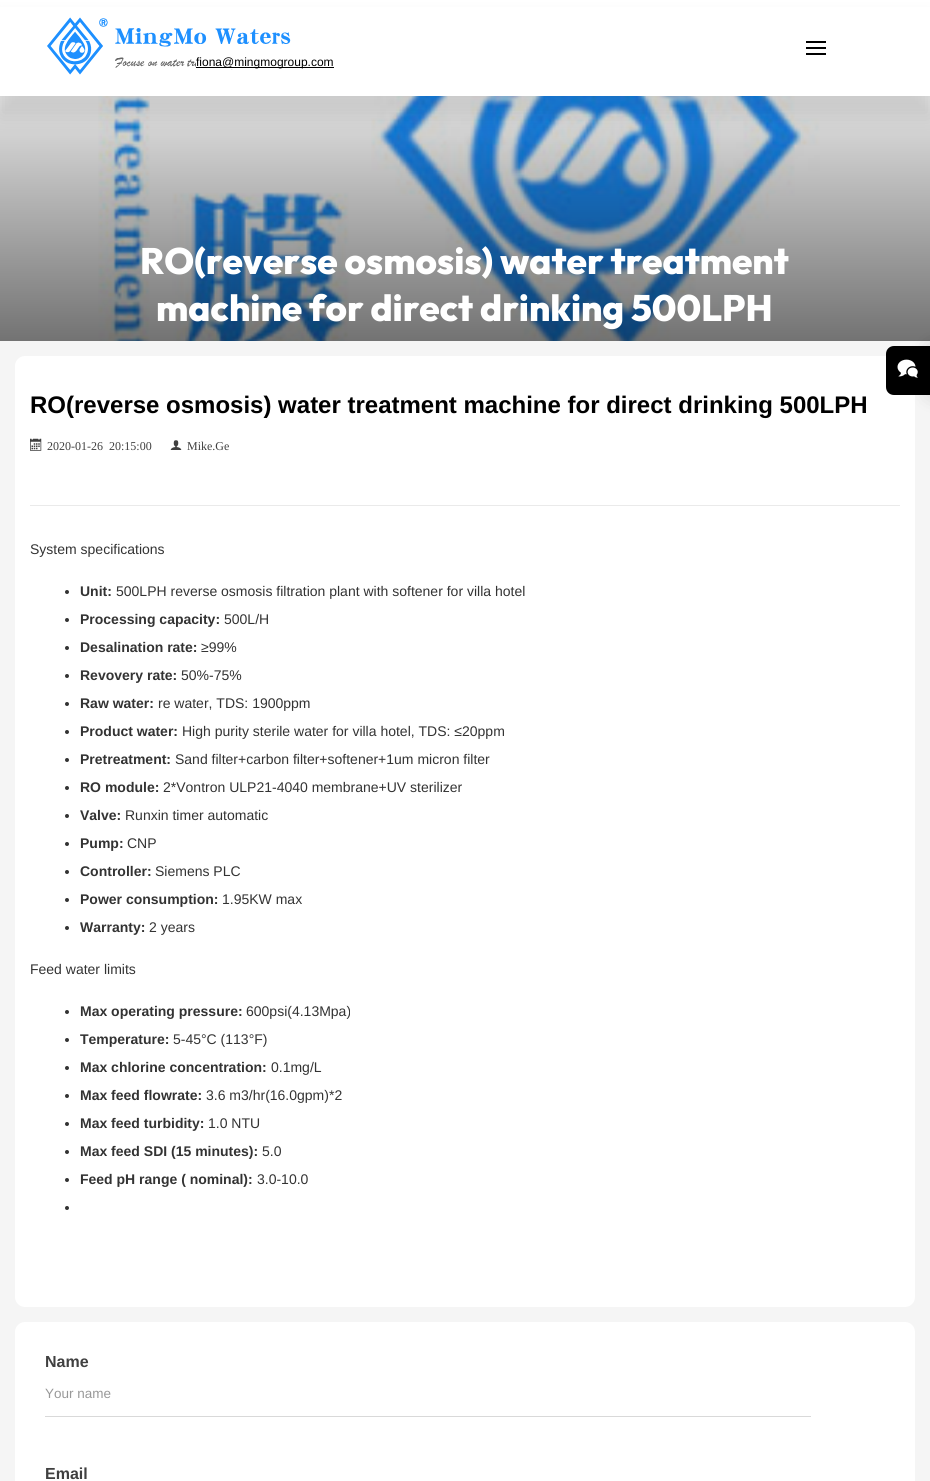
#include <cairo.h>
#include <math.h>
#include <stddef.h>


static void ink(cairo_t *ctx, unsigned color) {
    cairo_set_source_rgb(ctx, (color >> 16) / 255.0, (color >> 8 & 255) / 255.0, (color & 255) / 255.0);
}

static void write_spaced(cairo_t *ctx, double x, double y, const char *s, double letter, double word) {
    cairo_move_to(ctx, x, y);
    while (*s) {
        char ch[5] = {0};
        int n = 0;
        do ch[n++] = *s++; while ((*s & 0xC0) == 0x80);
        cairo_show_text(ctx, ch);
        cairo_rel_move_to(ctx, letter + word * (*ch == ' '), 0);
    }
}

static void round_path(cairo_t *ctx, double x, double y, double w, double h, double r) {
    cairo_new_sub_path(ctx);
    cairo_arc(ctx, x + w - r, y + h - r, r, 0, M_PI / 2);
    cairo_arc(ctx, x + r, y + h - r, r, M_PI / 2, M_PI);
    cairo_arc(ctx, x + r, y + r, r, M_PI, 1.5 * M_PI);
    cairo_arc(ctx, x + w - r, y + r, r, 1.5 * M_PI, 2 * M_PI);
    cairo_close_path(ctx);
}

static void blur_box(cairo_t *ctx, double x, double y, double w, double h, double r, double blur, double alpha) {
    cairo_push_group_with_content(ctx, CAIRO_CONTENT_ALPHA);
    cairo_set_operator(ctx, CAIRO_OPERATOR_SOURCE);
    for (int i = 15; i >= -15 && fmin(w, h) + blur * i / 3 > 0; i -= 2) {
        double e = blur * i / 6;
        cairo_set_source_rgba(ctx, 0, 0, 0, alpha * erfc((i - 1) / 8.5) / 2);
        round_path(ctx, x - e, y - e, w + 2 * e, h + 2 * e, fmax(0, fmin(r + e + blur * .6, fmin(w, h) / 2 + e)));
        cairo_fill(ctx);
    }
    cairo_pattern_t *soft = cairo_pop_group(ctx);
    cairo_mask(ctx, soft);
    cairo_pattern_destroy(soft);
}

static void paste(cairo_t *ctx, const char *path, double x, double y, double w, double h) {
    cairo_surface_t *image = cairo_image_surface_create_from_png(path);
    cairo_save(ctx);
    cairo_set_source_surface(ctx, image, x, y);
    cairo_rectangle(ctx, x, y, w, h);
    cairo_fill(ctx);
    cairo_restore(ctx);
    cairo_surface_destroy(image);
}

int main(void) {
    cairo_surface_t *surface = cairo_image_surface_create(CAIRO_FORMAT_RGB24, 930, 1481);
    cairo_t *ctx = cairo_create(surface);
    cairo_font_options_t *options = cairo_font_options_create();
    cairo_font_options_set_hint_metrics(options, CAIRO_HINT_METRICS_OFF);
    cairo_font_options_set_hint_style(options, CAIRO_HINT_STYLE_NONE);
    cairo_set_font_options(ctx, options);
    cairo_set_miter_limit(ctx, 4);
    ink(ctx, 0xFFFFFF);
    cairo_paint(ctx);
    paste(ctx, "media/3.png", 0, 96, 930, 245);
    ink(ctx, 0x000000);
    blur_box(ctx, 0, 20, 930, 96, 0, 10, 0.1);
    ink(ctx, 0xFFFFFF);
    cairo_rectangle(ctx, 0, 7, 930, 89);
    cairo_fill(ctx);
    paste(ctx, "media/1.png", 47, 17, 244, 58);
    paste(ctx, "media/2.png", 806, 41, 20, 14);
    cairo_rectangle(ctx, 196, 57, 88, 12);
    cairo_fill(ctx);
    ink(ctx, 0x000000);
    cairo_rectangle(ctx, 196, 67, 138, 1);
    cairo_fill(ctx);
    cairo_select_font_face(ctx, "Liberation Sans", CAIRO_FONT_SLANT_NORMAL, CAIRO_FONT_WEIGHT_NORMAL);
    cairo_set_font_size(ctx, 12);
    cairo_move_to(ctx, 196, 66);
    cairo_show_text(ctx, "fiona@mingmogroup.com");
    cairo_select_font_face(ctx, "Outfit ExtraBold", CAIRO_FONT_SLANT_NORMAL, CAIRO_FONT_WEIGHT_NORMAL);
    cairo_set_font_size(ctx, 36.75);
    ink(ctx, 0xFFFFFF);
    cairo_move_to(ctx, 140, 274);
    cairo_show_text(ctx, "RO(reverse osmosis) water treatment");
    cairo_move_to(ctx, 156, 321);
    cairo_show_text(ctx, "machine for direct drinking 500LPH");
    ink(ctx, 0xF5F5F5);
    cairo_rectangle(ctx, 0, 341, 930, 1140);
    cairo_fill(ctx);
    ink(ctx, 0xFFFFFF);
    round_path(ctx, 15, 356, 900, 951, 10);
    cairo_fill(ctx);
    ink(ctx, 0xEAEAEA);
    cairo_rectangle(ctx, 30, 505, 870, 1);
    cairo_fill(ctx);
    cairo_select_font_face(ctx, "Liberation Sans", CAIRO_FONT_SLANT_NORMAL, CAIRO_FONT_WEIGHT_BOLD);
    cairo_set_font_size(ctx, 24);
    ink(ctx, 0x000000);
    cairo_move_to(ctx, 30, 413);
    cairo_show_text(ctx, "RO(reverse osmosis) water treatment machine for direct drinking 500LPH");
    paste(ctx, "media/4.png", 30, 438, 12, 13);
    cairo_select_font_face(ctx, "Liberation Serif", CAIRO_FONT_SLANT_NORMAL, CAIRO_FONT_WEIGHT_NORMAL);
    cairo_set_font_size(ctx, 12);
    ink(ctx, 0x404040);
    write_spaced(ctx, 47, 450, "2020-01-26 20:15:00", 0, 3);
    paste(ctx, "media/5.png", 170, 440, 12, 10);
    cairo_move_to(ctx, 187, 450);
    cairo_show_text(ctx, "Mike.Ge");
    cairo_select_font_face(ctx, "Liberation Sans", CAIRO_FONT_SLANT_NORMAL, CAIRO_FONT_WEIGHT_NORMAL);
    cairo_set_font_size(ctx, 14);
    ink(ctx, 0x333333);
    cairo_move_to(ctx, 30, 554);
    cairo_show_text(ctx, "System specifications");
    cairo_new_path(ctx);
    cairo_arc(ctx, 67, 592, 2, 0, 2 * M_PI);
    cairo_fill(ctx);
    cairo_select_font_face(ctx, "Liberation Sans", CAIRO_FONT_SLANT_NORMAL, CAIRO_FONT_WEIGHT_BOLD);
    cairo_move_to(ctx, 80, 596);
    cairo_show_text(ctx, "Unit:");
    cairo_select_font_face(ctx, "Liberation Sans", CAIRO_FONT_SLANT_NORMAL, CAIRO_FONT_WEIGHT_NORMAL);
    cairo_move_to(ctx, 116, 596);
    cairo_show_text(ctx, "500LPH reverse osmosis filtration plant with softener for villa hotel");
    cairo_new_path(ctx);
    cairo_arc(ctx, 67, 620, 2, 0, 2 * M_PI);
    cairo_fill(ctx);
    cairo_select_font_face(ctx, "Liberation Sans", CAIRO_FONT_SLANT_NORMAL, CAIRO_FONT_WEIGHT_BOLD);
    cairo_move_to(ctx, 80, 624);
    cairo_show_text(ctx, "Processing capacity:");
    cairo_select_font_face(ctx, "Liberation Sans", CAIRO_FONT_SLANT_NORMAL, CAIRO_FONT_WEIGHT_NORMAL);
    cairo_move_to(ctx, 224, 624);
    cairo_show_text(ctx, "500L/H");
    cairo_new_path(ctx);
    cairo_arc(ctx, 67, 648, 2, 0, 2 * M_PI);
    cairo_fill(ctx);
    cairo_select_font_face(ctx, "Liberation Sans", CAIRO_FONT_SLANT_NORMAL, CAIRO_FONT_WEIGHT_BOLD);
    cairo_move_to(ctx, 80, 652);
    cairo_show_text(ctx, "Desalination rate:");
    cairo_select_font_face(ctx, "Liberation Sans", CAIRO_FONT_SLANT_NORMAL, CAIRO_FONT_WEIGHT_NORMAL);
    cairo_move_to(ctx, 201, 652);
    cairo_show_text(ctx, "≥99%");
    cairo_new_path(ctx);
    cairo_arc(ctx, 67, 676, 2, 0, 2 * M_PI);
    cairo_fill(ctx);
    cairo_select_font_face(ctx, "Liberation Sans", CAIRO_FONT_SLANT_NORMAL, CAIRO_FONT_WEIGHT_BOLD);
    cairo_move_to(ctx, 80, 680);
    cairo_show_text(ctx, "Revovery rate:");
    cairo_select_font_face(ctx, "Liberation Sans", CAIRO_FONT_SLANT_NORMAL, CAIRO_FONT_WEIGHT_NORMAL);
    cairo_move_to(ctx, 181, 680);
    cairo_show_text(ctx, "50%-75%");
    cairo_new_path(ctx);
    cairo_arc(ctx, 67, 704, 2, 0, 2 * M_PI);
    cairo_fill(ctx);
    cairo_select_font_face(ctx, "Liberation Sans", CAIRO_FONT_SLANT_NORMAL, CAIRO_FONT_WEIGHT_BOLD);
    cairo_move_to(ctx, 80, 708);
    cairo_show_text(ctx, "Raw water:");
    cairo_select_font_face(ctx, "Liberation Sans", CAIRO_FONT_SLANT_NORMAL, CAIRO_FONT_WEIGHT_NORMAL);
    cairo_move_to(ctx, 158, 708);
    cairo_show_text(ctx, "re water, TDS: 1900ppm");
    cairo_new_path(ctx);
    cairo_arc(ctx, 67, 732, 2, 0, 2 * M_PI);
    cairo_fill(ctx);
    cairo_select_font_face(ctx, "Liberation Sans", CAIRO_FONT_SLANT_NORMAL, CAIRO_FONT_WEIGHT_BOLD);
    cairo_move_to(ctx, 80, 736);
    cairo_show_text(ctx, "Product water:");
    cairo_select_font_face(ctx, "Liberation Sans", CAIRO_FONT_SLANT_NORMAL, CAIRO_FONT_WEIGHT_NORMAL);
    cairo_move_to(ctx, 182, 736);
    cairo_show_text(ctx, "High purity sterile water for villa hotel, TDS: ≤20ppm");
    cairo_new_path(ctx);
    cairo_arc(ctx, 67, 760, 2, 0, 2 * M_PI);
    cairo_fill(ctx);
    cairo_select_font_face(ctx, "Liberation Sans", CAIRO_FONT_SLANT_NORMAL, CAIRO_FONT_WEIGHT_BOLD);
    cairo_move_to(ctx, 80, 764);
    cairo_show_text(ctx, "Pretreatment:");
    cairo_select_font_face(ctx, "Liberation Sans", CAIRO_FONT_SLANT_NORMAL, CAIRO_FONT_WEIGHT_NORMAL);
    cairo_move_to(ctx, 175, 764);
    cairo_show_text(ctx, "Sand filter+carbon filter+softener+1um micron filter");
    cairo_new_path(ctx);
    cairo_arc(ctx, 67, 788, 2, 0, 2 * M_PI);
    cairo_fill(ctx);
    cairo_select_font_face(ctx, "Liberation Sans", CAIRO_FONT_SLANT_NORMAL, CAIRO_FONT_WEIGHT_BOLD);
    cairo_move_to(ctx, 80, 792);
    cairo_show_text(ctx, "RO module:");
    cairo_select_font_face(ctx, "Liberation Sans", CAIRO_FONT_SLANT_NORMAL, CAIRO_FONT_WEIGHT_NORMAL);
    cairo_move_to(ctx, 163, 792);
    cairo_show_text(ctx, "2*Vontron ULP21-4040 membrane+UV sterilizer");
    cairo_new_path(ctx);
    cairo_arc(ctx, 67, 816, 2, 0, 2 * M_PI);
    cairo_fill(ctx);
    cairo_select_font_face(ctx, "Liberation Sans", CAIRO_FONT_SLANT_NORMAL, CAIRO_FONT_WEIGHT_BOLD);
    cairo_move_to(ctx, 80, 820);
    cairo_show_text(ctx, "Valve:");
    cairo_select_font_face(ctx, "Liberation Sans", CAIRO_FONT_SLANT_NORMAL, CAIRO_FONT_WEIGHT_NORMAL);
    cairo_move_to(ctx, 125, 820);
    cairo_show_text(ctx, "Runxin timer automatic");
    cairo_new_path(ctx);
    cairo_arc(ctx, 67, 844, 2, 0, 2 * M_PI);
    cairo_fill(ctx);
    cairo_select_font_face(ctx, "Liberation Sans", CAIRO_FONT_SLANT_NORMAL, CAIRO_FONT_WEIGHT_BOLD);
    cairo_move_to(ctx, 80, 848);
    cairo_show_text(ctx, "Pump:");
    cairo_select_font_face(ctx, "Liberation Sans", CAIRO_FONT_SLANT_NORMAL, CAIRO_FONT_WEIGHT_NORMAL);
    cairo_move_to(ctx, 127, 848);
    cairo_show_text(ctx, "CNP");
    cairo_new_path(ctx);
    cairo_arc(ctx, 67, 872, 2, 0, 2 * M_PI);
    cairo_fill(ctx);
    cairo_select_font_face(ctx, "Liberation Sans", CAIRO_FONT_SLANT_NORMAL, CAIRO_FONT_WEIGHT_BOLD);
    cairo_move_to(ctx, 80, 876);
    cairo_show_text(ctx, "Controller:");
    cairo_select_font_face(ctx, "Liberation Sans", CAIRO_FONT_SLANT_NORMAL, CAIRO_FONT_WEIGHT_NORMAL);
    cairo_move_to(ctx, 155, 876);
    cairo_show_text(ctx, "Siemens PLC");
    cairo_new_path(ctx);
    cairo_arc(ctx, 67, 900, 2, 0, 2 * M_PI);
    cairo_fill(ctx);
    cairo_select_font_face(ctx, "Liberation Sans", CAIRO_FONT_SLANT_NORMAL, CAIRO_FONT_WEIGHT_BOLD);
    cairo_move_to(ctx, 80, 904);
    cairo_show_text(ctx, "Power consumption:");
    cairo_select_font_face(ctx, "Liberation Sans", CAIRO_FONT_SLANT_NORMAL, CAIRO_FONT_WEIGHT_NORMAL);
    cairo_move_to(ctx, 222, 904);
    cairo_show_text(ctx, "1.95KW max");
    cairo_new_path(ctx);
    cairo_arc(ctx, 67, 928, 2, 0, 2 * M_PI);
    cairo_fill(ctx);
    cairo_select_font_face(ctx, "Liberation Sans", CAIRO_FONT_SLANT_NORMAL, CAIRO_FONT_WEIGHT_BOLD);
    cairo_move_to(ctx, 80, 932);
    cairo_show_text(ctx, "Warranty:");
    cairo_select_font_face(ctx, "Liberation Sans", CAIRO_FONT_SLANT_NORMAL, CAIRO_FONT_WEIGHT_NORMAL);
    cairo_move_to(ctx, 149, 932);
    cairo_show_text(ctx, "2 years");
    cairo_move_to(ctx, 30, 974);
    cairo_show_text(ctx, "Feed water limits");
    cairo_new_path(ctx);
    cairo_arc(ctx, 67, 1012, 2, 0, 2 * M_PI);
    cairo_fill(ctx);
    cairo_select_font_face(ctx, "Liberation Sans", CAIRO_FONT_SLANT_NORMAL, CAIRO_FONT_WEIGHT_BOLD);
    cairo_move_to(ctx, 80, 1016);
    cairo_show_text(ctx, "Max operating pressure:");
    cairo_select_font_face(ctx, "Liberation Sans", CAIRO_FONT_SLANT_NORMAL, CAIRO_FONT_WEIGHT_NORMAL);
    cairo_move_to(ctx, 246, 1016);
    cairo_show_text(ctx, "600psi(4.13Mpa)");
    cairo_new_path(ctx);
    cairo_arc(ctx, 67, 1040, 2, 0, 2 * M_PI);
    cairo_fill(ctx);
    cairo_select_font_face(ctx, "Liberation Sans", CAIRO_FONT_SLANT_NORMAL, CAIRO_FONT_WEIGHT_BOLD);
    cairo_move_to(ctx, 80, 1044);
    cairo_show_text(ctx, "Temperature:");
    cairo_select_font_face(ctx, "Liberation Sans", CAIRO_FONT_SLANT_NORMAL, CAIRO_FONT_WEIGHT_NORMAL);
    cairo_move_to(ctx, 173, 1044);
    cairo_show_text(ctx, "5-45°C (113°F)");
    cairo_new_path(ctx);
    cairo_arc(ctx, 67, 1068, 2, 0, 2 * M_PI);
    cairo_fill(ctx);
    cairo_select_font_face(ctx, "Liberation Sans", CAIRO_FONT_SLANT_NORMAL, CAIRO_FONT_WEIGHT_BOLD);
    cairo_move_to(ctx, 80, 1072);
    cairo_show_text(ctx, "Max chlorine concentration:");
    cairo_select_font_face(ctx, "Liberation Sans", CAIRO_FONT_SLANT_NORMAL, CAIRO_FONT_WEIGHT_NORMAL);
    cairo_move_to(ctx, 271, 1072);
    cairo_show_text(ctx, "0.1mg/L");
    cairo_new_path(ctx);
    cairo_arc(ctx, 67, 1096, 2, 0, 2 * M_PI);
    cairo_fill(ctx);
    cairo_select_font_face(ctx, "Liberation Sans", CAIRO_FONT_SLANT_NORMAL, CAIRO_FONT_WEIGHT_BOLD);
    cairo_move_to(ctx, 80, 1100);
    cairo_show_text(ctx, "Max feed flowrate:");
    cairo_select_font_face(ctx, "Liberation Sans", CAIRO_FONT_SLANT_NORMAL, CAIRO_FONT_WEIGHT_NORMAL);
    cairo_move_to(ctx, 206, 1100);
    cairo_show_text(ctx, "3.6 m3/hr(16.0gpm)*2");
    cairo_new_path(ctx);
    cairo_arc(ctx, 67, 1124, 2, 0, 2 * M_PI);
    cairo_fill(ctx);
    cairo_select_font_face(ctx, "Liberation Sans", CAIRO_FONT_SLANT_NORMAL, CAIRO_FONT_WEIGHT_BOLD);
    cairo_move_to(ctx, 80, 1128);
    cairo_show_text(ctx, "Max feed turbidity:");
    cairo_select_font_face(ctx, "Liberation Sans", CAIRO_FONT_SLANT_NORMAL, CAIRO_FONT_WEIGHT_NORMAL);
    cairo_move_to(ctx, 208, 1128);
    cairo_show_text(ctx, "1.0 NTU");
    cairo_new_path(ctx);
    cairo_arc(ctx, 67, 1152, 2, 0, 2 * M_PI);
    cairo_fill(ctx);
    cairo_select_font_face(ctx, "Liberation Sans", CAIRO_FONT_SLANT_NORMAL, CAIRO_FONT_WEIGHT_BOLD);
    cairo_move_to(ctx, 80, 1156);
    cairo_show_text(ctx, "Max feed SDI (15 minutes):");
    cairo_select_font_face(ctx, "Liberation Sans", CAIRO_FONT_SLANT_NORMAL, CAIRO_FONT_WEIGHT_NORMAL);
    cairo_move_to(ctx, 262, 1156);
    cairo_show_text(ctx, "5.0");
    cairo_new_path(ctx);
    cairo_arc(ctx, 67, 1180, 2, 0, 2 * M_PI);
    cairo_fill(ctx);
    cairo_select_font_face(ctx, "Liberation Sans", CAIRO_FONT_SLANT_NORMAL, CAIRO_FONT_WEIGHT_BOLD);
    cairo_move_to(ctx, 80, 1184);
    cairo_show_text(ctx, "Feed pH range ( nominal):");
    cairo_select_font_face(ctx, "Liberation Sans", CAIRO_FONT_SLANT_NORMAL, CAIRO_FONT_WEIGHT_NORMAL);
    cairo_move_to(ctx, 257, 1184);
    cairo_show_text(ctx, "3.0-10.0");
    cairo_new_path(ctx);
    cairo_arc(ctx, 67, 1208, 2, 0, 2 * M_PI);
    cairo_fill(ctx);
    ink(ctx, 0xFFFFFF);
    round_path(ctx, 15, 1322, 900, 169, 10);
    cairo_fill(ctx);
    cairo_select_font_face(ctx, "Liberation Sans", CAIRO_FONT_SLANT_NORMAL, CAIRO_FONT_WEIGHT_BOLD);
    cairo_set_font_size(ctx, 16);
    ink(ctx, 0x404040);
    cairo_move_to(ctx, 45, 1367);
    cairo_show_text(ctx, "Name");
    ink(ctx, 0xD9D9D9);
    cairo_rectangle(ctx, 45, 1416, 766, 1);
    cairo_fill(ctx);
    cairo_select_font_face(ctx, "Liberation Sans", CAIRO_FONT_SLANT_NORMAL, CAIRO_FONT_WEIGHT_NORMAL);
    cairo_set_font_size(ctx, 13.5);
    ink(ctx, 0x989898);
    cairo_move_to(ctx, 45, 1398);
    cairo_show_text(ctx, "Your name");
    cairo_select_font_face(ctx, "Liberation Sans", CAIRO_FONT_SLANT_NORMAL, CAIRO_FONT_WEIGHT_BOLD);
    cairo_set_font_size(ctx, 16);
    ink(ctx, 0x404040);
    cairo_move_to(ctx, 45, 1479);
    cairo_show_text(ctx, "Email");
    ink(ctx, 0x000000);
    blur_box(ctx, 929, 346, 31, 49, 0, 10, 0.15);
    ink(ctx, 0x000000);
    cairo_new_path(ctx);
    cairo_move_to(ctx, 894, 347);
    cairo_line_to(ctx, 929, 347);
    cairo_line_to(ctx, 929, 394);
    cairo_line_to(ctx, 894, 394);
    cairo_curve_to(ctx, 890, 394, 887, 391, 887, 387);
    cairo_line_to(ctx, 887, 354);
    cairo_curve_to(ctx, 887, 350, 890, 347, 894, 347);
    cairo_close_path(ctx);
    cairo_fill_preserve(ctx);
    cairo_stroke(ctx);
    paste(ctx, "media/6.png", 897, 359, 21, 19);
    cairo_surface_write_to_png(surface, "image.png");
    cairo_font_options_destroy(options);
    cairo_destroy(ctx);
    cairo_surface_destroy(surface);
    return 0;
}
